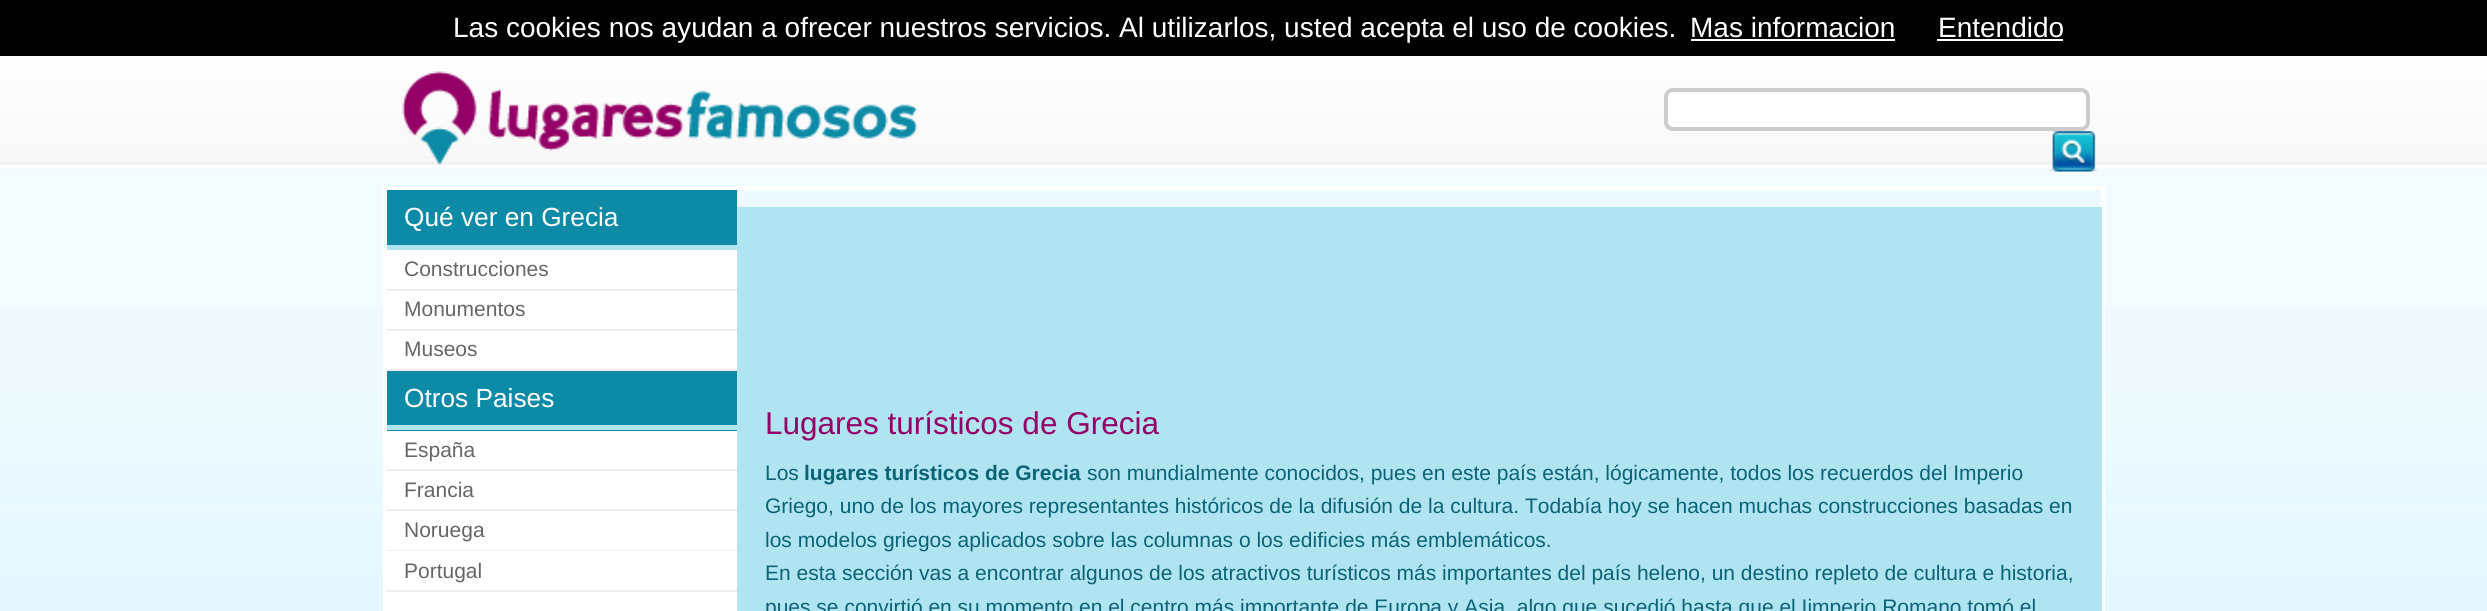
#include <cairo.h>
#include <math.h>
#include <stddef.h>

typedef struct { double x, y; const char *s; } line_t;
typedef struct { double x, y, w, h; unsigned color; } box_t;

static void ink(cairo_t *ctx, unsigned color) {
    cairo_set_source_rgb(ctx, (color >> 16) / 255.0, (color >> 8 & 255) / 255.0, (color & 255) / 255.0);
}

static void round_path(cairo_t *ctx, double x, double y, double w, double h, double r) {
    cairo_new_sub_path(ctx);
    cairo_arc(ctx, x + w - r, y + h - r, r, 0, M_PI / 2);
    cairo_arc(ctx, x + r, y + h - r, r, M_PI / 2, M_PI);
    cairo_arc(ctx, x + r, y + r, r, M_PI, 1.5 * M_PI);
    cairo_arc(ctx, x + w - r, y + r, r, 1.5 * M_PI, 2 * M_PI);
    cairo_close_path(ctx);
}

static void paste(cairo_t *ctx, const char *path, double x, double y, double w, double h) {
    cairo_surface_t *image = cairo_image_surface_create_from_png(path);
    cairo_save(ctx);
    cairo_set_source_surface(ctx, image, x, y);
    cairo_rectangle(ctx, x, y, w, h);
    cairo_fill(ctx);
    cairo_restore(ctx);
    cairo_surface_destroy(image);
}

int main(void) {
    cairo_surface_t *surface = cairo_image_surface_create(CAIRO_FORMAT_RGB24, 2487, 611);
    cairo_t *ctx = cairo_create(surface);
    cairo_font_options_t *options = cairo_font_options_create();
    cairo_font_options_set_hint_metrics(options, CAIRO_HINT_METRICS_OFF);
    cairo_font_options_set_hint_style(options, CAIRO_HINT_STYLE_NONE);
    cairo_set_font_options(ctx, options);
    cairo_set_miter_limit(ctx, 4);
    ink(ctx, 0xFFFFFF);
    cairo_paint(ctx);
    paste(ctx, "media/1.png", 0, 56, 2487, 555);
    ink(ctx, 0x000000);
    cairo_rectangle(ctx, 0, 0, 2487, 56);
    cairo_fill(ctx);
    cairo_select_font_face(ctx, "Liberation Sans", CAIRO_FONT_SLANT_NORMAL, CAIRO_FONT_WEIGHT_NORMAL);
    cairo_set_font_size(ctx, 28);
    ink(ctx, 0xFFFFFF);
    cairo_move_to(ctx, 453, 37);
    cairo_show_text(ctx, "Las cookies nos ayudan a ofrecer nuestros servicios. Al utilizarlos, usted acepta el uso de cookies.");
    cairo_move_to(ctx, 1690, 37);
    cairo_show_text(ctx, "Mas informacion");
    cairo_rectangle(ctx, 1691, 39, 204, 2);
    cairo_fill(ctx);
    cairo_move_to(ctx, 1938, 37);
    cairo_show_text(ctx, "Entendido");
    cairo_rectangle(ctx, 1937, 39, 126, 2);
    cairo_fill(ctx);
    paste(ctx, "media/2.png", 402, 71, 516, 94);
    round_path(ctx, 1666, 90, 422, 39, 7);
    cairo_fill_preserve(ctx);
    ink(ctx, 0xCCCCCC);
    cairo_set_line_width(ctx, 4);
    cairo_stroke(ctx);
    paste(ctx, "media/3.png", 2048, 131, 51, 41);
    {
        static const box_t items[] = {
            {737, 190, 1364, 17, 0xEDFAFF},
            {387, 190, 350, 55, 0x0D8AA6},
            {387, 245, 350, 5, 0xB0E4F0},
            {387, 250, 350, 39, 0xFFFFFF},
            {387, 289, 350, 2, 0xEEEEEE},
            {387, 291, 350, 38, 0xFFFFFF},
            {387, 329, 350, 2, 0xEEEEEE},
            {387, 331, 350, 38, 0xFFFFFF},
            {387, 369, 350, 2, 0xEEEEEE},
            {387, 371, 350, 60, 0x0D8AA6},
            {387, 425, 350, 5, 0xB0E4F0},
            {387, 431, 350, 38, 0xFFFFFF},
            {387, 469, 350, 2, 0xEEEEEE},
            {387, 471, 350, 38, 0xFFFFFF},
            {387, 509, 350, 2, 0xEEEEEE},
            {387, 511, 350, 39, 0xFFFFFF},
            {387, 550, 350, 1, 0xEEEEEE},
            {387, 551, 350, 39, 0xFFFFFF},
            {387, 590, 350, 2, 0xEEEEEE},
            {387, 592, 350, 19, 0xFFFFFF},
            {737, 207, 2, 404, 0xB0E4F0},
        };
        for (size_t i = 0; i < sizeof items / sizeof *items; i++) {
            ink(ctx, items[i].color);
            cairo_rectangle(ctx, items[i].x, items[i].y, items[i].w, items[i].h);
            cairo_fill(ctx);
        }
    }
    cairo_rectangle(ctx, 385, 188, 1718, 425);
    ink(ctx, 0xFFFFFF);
    cairo_stroke(ctx);
    cairo_set_font_size(ctx, 26.25);
    cairo_move_to(ctx, 404, 226);
    cairo_show_text(ctx, "Qué ver en Grecia");
    cairo_set_font_size(ctx, 21);
    ink(ctx, 0x666666);
    {
        static const line_t items[] = {
            {404, 276, "Construcciones"},
            {404, 316, "Monumentos"},
            {404, 356, "Museos"},
        };
        for (size_t i = 0; i < sizeof items / sizeof *items; i++) {
            cairo_move_to(ctx, items[i].x, items[i].y);
            cairo_show_text(ctx, items[i].s);
        }
    }
    cairo_set_font_size(ctx, 26.25);
    ink(ctx, 0xFFFFFF);
    cairo_move_to(ctx, 404, 407);
    cairo_show_text(ctx, "Otros Paises");
    cairo_set_font_size(ctx, 21);
    ink(ctx, 0x666666);
    {
        static const line_t items[] = {
            {404, 457, "España"},
            {404, 497, "Francia"},
            {404, 537, "Noruega"},
            {404, 578, "Portugal"},
        };
        for (size_t i = 0; i < sizeof items / sizeof *items; i++) {
            cairo_move_to(ctx, items[i].x, items[i].y);
            cairo_show_text(ctx, items[i].s);
        }
    }
    ink(ctx, 0xB0E4F0);
    cairo_rectangle(ctx, 739, 207, 1363, 404);
    cairo_fill(ctx);
    cairo_set_font_size(ctx, 31.5);
    ink(ctx, 0x940066);
    cairo_move_to(ctx, 765, 434);
    cairo_show_text(ctx, "Lugares turísticos de Grecia");
    cairo_set_font_size(ctx, 21);
    ink(ctx, 0x0A6376);
    cairo_move_to(ctx, 765, 480);
    cairo_show_text(ctx, "Los");
    cairo_select_font_face(ctx, "Liberation Sans", CAIRO_FONT_SLANT_NORMAL, CAIRO_FONT_WEIGHT_BOLD);
    cairo_move_to(ctx, 804, 480);
    cairo_show_text(ctx, "lugares turísticos de Grecia");
    cairo_select_font_face(ctx, "Liberation Sans", CAIRO_FONT_SLANT_NORMAL, CAIRO_FONT_WEIGHT_NORMAL);
    {
        static const line_t items[] = {
            {1087, 480, "son mundialmente conocidos, pues en este país están, lógicamente, todos los recuerdos del Imperio"},
            {765, 513, "Griego, uno de los mayores representantes históricos de la difusión de la cultura. Todabía hoy se hacen muchas construcciones basadas en"},
            {765, 547, "los modelos griegos aplicados sobre las columnas o los edificies más emblemáticos."},
            {765, 580, "En esta sección vas a encontrar algunos de los atractivos turísticos más importantes del país heleno, un destino repleto de cultura e historia,"},
            {765, 614, "pues se convirtió en su momento en el centro más importante de Europa y Asia, algo que sucedió hasta que el Iimperio Romano tomó el"},
        };
        for (size_t i = 0; i < sizeof items / sizeof *items; i++) {
            cairo_move_to(ctx, items[i].x, items[i].y);
            cairo_show_text(ctx, items[i].s);
        }
    }
    cairo_surface_write_to_png(surface, "image.png");
    cairo_font_options_destroy(options);
    cairo_destroy(ctx);
    cairo_surface_destroy(surface);
    return 0;
}
